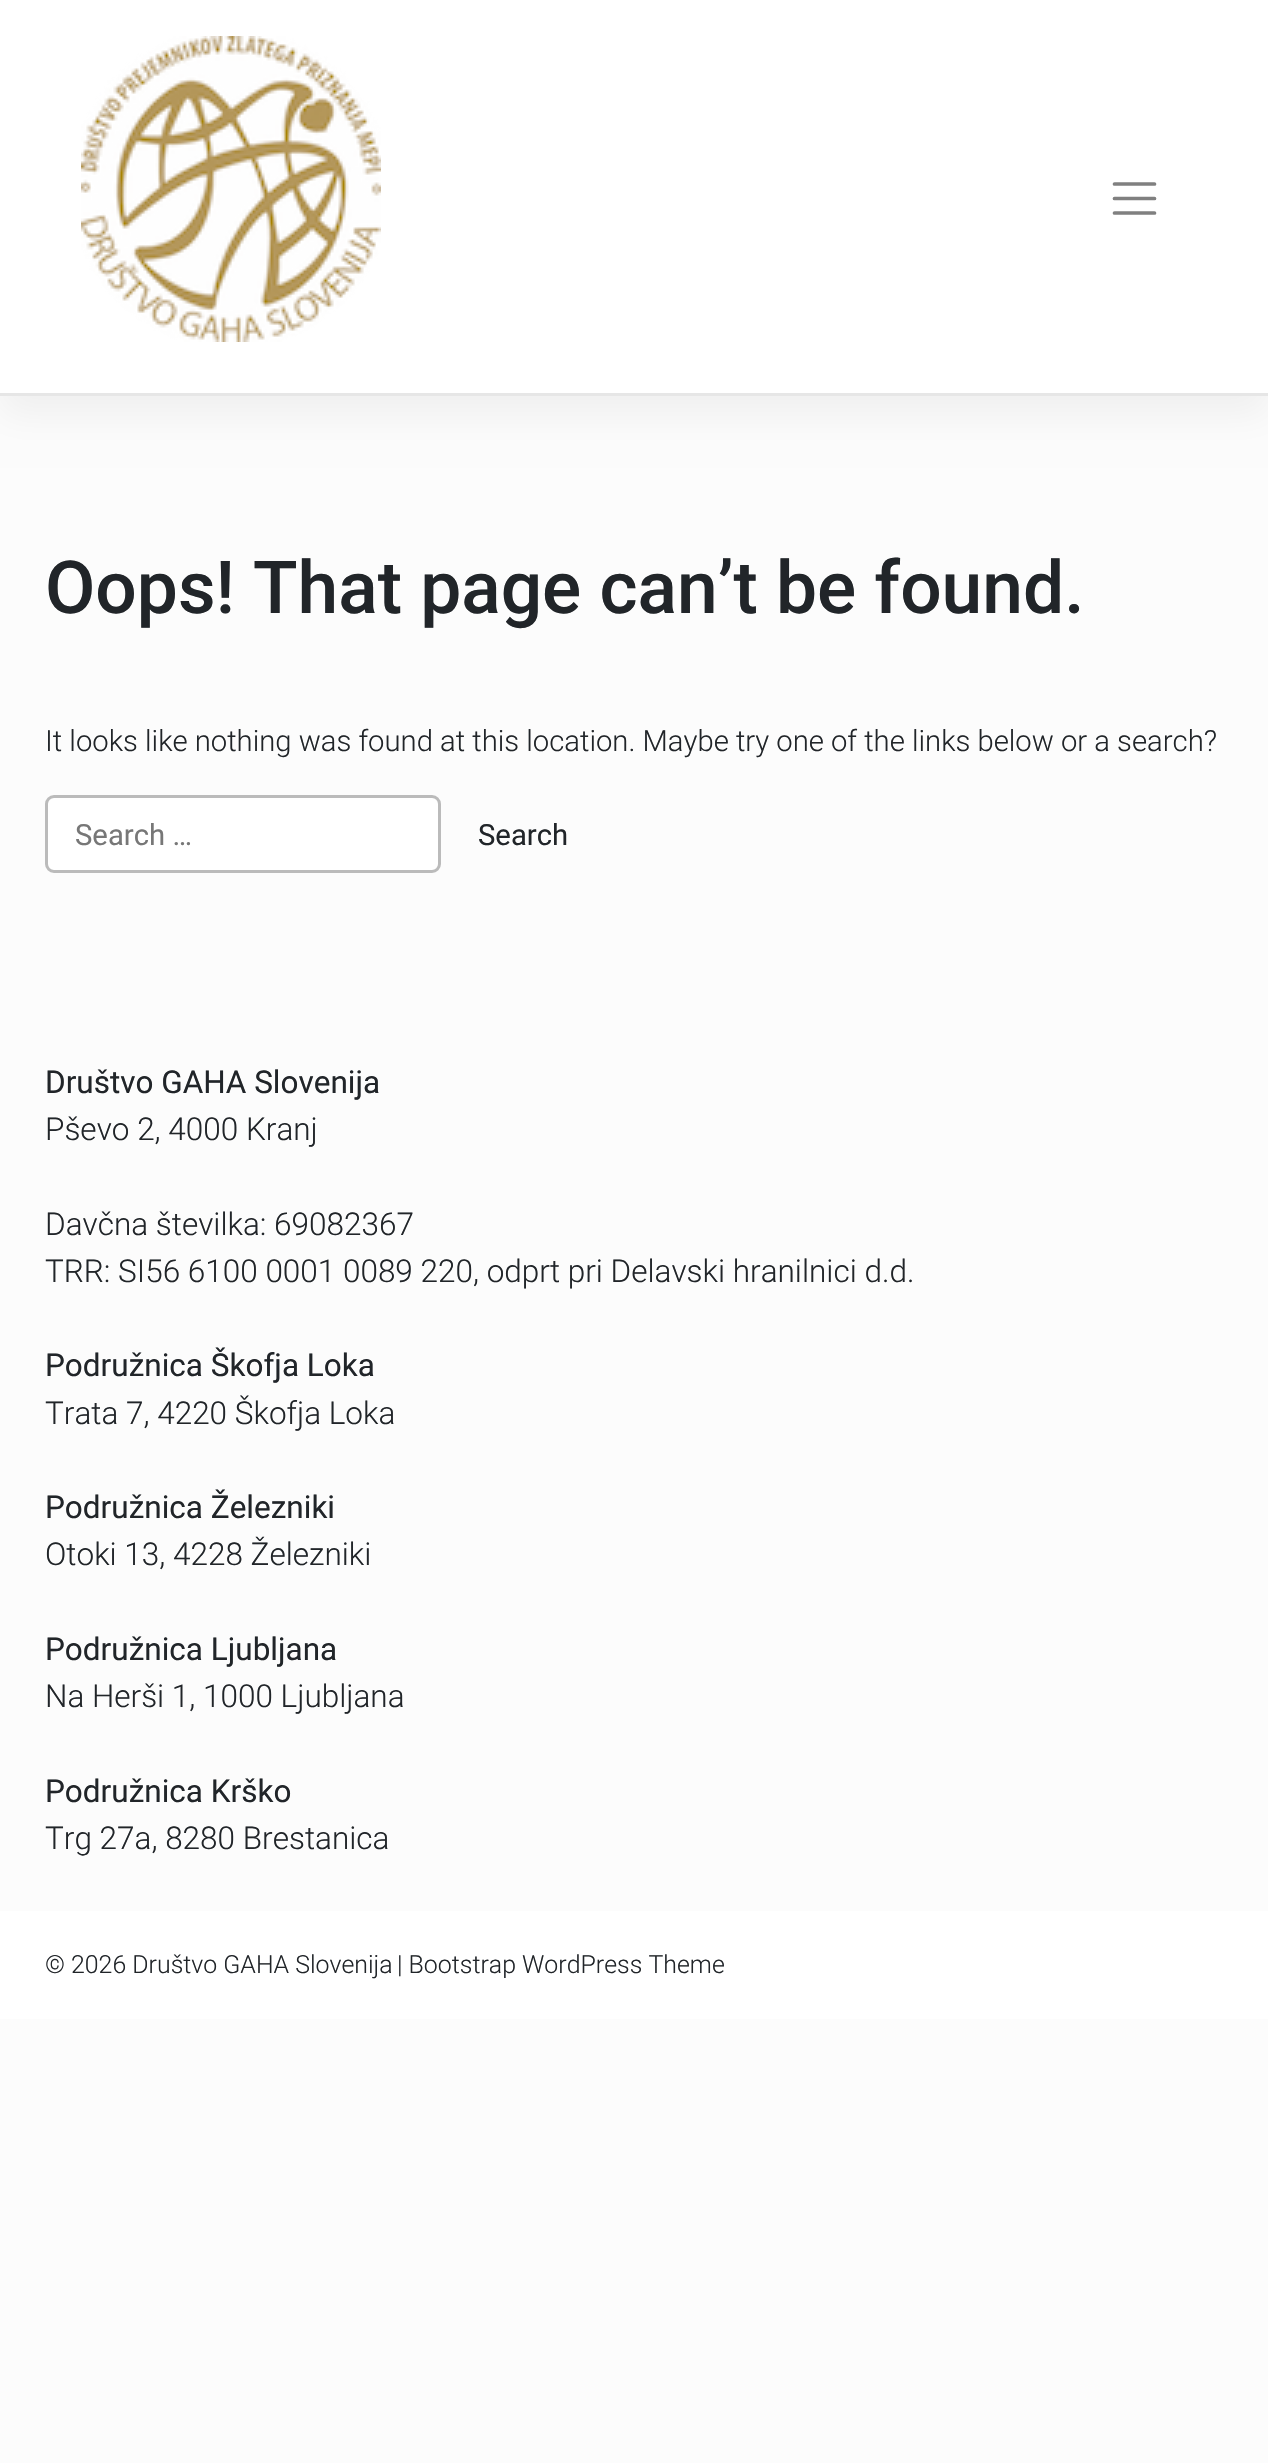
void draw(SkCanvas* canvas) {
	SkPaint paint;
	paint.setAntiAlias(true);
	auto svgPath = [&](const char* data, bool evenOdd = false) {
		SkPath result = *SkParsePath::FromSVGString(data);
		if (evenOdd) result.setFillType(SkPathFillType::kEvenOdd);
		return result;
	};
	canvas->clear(0xfffcfcfc);
	paint.setColor(0x0d000000);
	paint.setMaskFilter(SkMaskFilter::MakeBlur(kNormal_SkBlurStyle, 18));
	canvas->drawRect(SkRect::MakeXYWH(0, 18, 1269, 396), paint);
	paint.setMaskFilter(nullptr);
	paint.setColor(0xffffffff);
	canvas->drawRect(SkRect::MakeXYWH(0, 0, 1268, 393), paint);
	paint.setColor(0xffe6e6e6);
	canvas->drawRect(SkRect::MakeXYWH(0, 393, 1268, 3), paint);
	canvas->drawImageRect(SkImages::DeferredFromEncodedData(SkData::MakeFromFileName("img1.png")), SkRect::MakeXYWH(81, 36, 300, 306), SkSamplingOptions());
	paint.setStroke(true);
	paint.setStrokeWidth(3.7);
	paint.setStrokeCap(SkPaint::kRound_Cap);
	paint.setColor(0xff808080);
	canvas->drawPath(svgPath("M1114.5 184H1154.5M1114.5 198.5H1154.5M1114.5 213H1154.5"), paint);
	SkFont f1(fontMgr->matchFamilyStyle("Roboto", SkFontStyle(500, SkFontStyle::kNormal_Width, SkFontStyle::kUpright_Slant)), 73.1);
	f1.setSubpixel(true);
	paint.setStroke(false);
	paint.setColor(0xff212529);
	canvas->drawString("Oops! That page can’t be found.", 45, 613, f1, paint);
	SkFont f2(fontMgr->matchFamilyStyle("Roboto", SkFontStyle(300, SkFontStyle::kNormal_Width, SkFontStyle::kUpright_Slant)), 29.25);
	f2.setSubpixel(true);
	canvas->drawString("It looks like nothing was found at this location. Maybe try one of the links below or a search?", 45, 751, f2, paint);
	paint.setColor(0xffffffff);
	canvas->drawRoundRect(SkRect::MakeXYWH(46.5, 796.5, 393, 75), 7.5, 7.5, paint);
	paint.setStroke(true);
	paint.setStrokeWidth(3);
	paint.setStrokeCap(SkPaint::kButt_Cap);
	paint.setColor(0xffbbbbbb);
	canvas->drawRoundRect(SkRect::MakeXYWH(46.5, 796.5, 393, 75), 7.5, 7.5, paint);
	SkFont f3(fontMgr->matchFamilyStyle("Roboto", SkFontStyle::Normal()), 29.25);
	f3.setSubpixel(true);
	paint.setStroke(false);
	paint.setColor(0xff777777);
	canvas->drawString("Search …", 75, 845, f3, paint);
	paint.setColor(0xff212529);
	canvas->drawString("Search", 478, 845, f3, paint);
	SkFont f4(fontMgr->matchFamilyStyle("Roboto", SkFontStyle::Normal()), 31.5);
	f4.setSubpixel(true);
	canvas->drawString("Društvo GAHA Slovenija", 45, 1093, f4, paint);
	SkFont f5(fontMgr->matchFamilyStyle("Roboto", SkFontStyle(300, SkFontStyle::kNormal_Width, SkFontStyle::kUpright_Slant)), 31.5);
	f5.setSubpixel(true);
	canvas->drawString("Pševo 2, 4000 Kranj", 45, 1140, f5, paint);
	canvas->drawString("Davčna številka: 69082367", 45, 1235, f5, paint);
	canvas->drawString("TRR: SI56 6100 0001 0089 220, odprt pri Delavski hranilnici d.d.", 45, 1282, f5, paint);
	canvas->drawString("Podružnica Škofja Loka", 45, 1376, f4, paint);
	canvas->drawString("Trata 7, 4220 Škofja Loka", 45, 1424, f5, paint);
	canvas->drawString("Podružnica Železniki", 45, 1518, f4, paint);
	canvas->drawString("Otoki 13, 4228 Železniki", 45, 1565, f5, paint);
	canvas->drawString("Podružnica Ljubljana", 45, 1660, f4, paint);
	canvas->drawString("Na Herši 1, 1000 Ljubljana", 45, 1707, f5, paint);
	canvas->drawString("Podružnica Krško", 45, 1802, f4, paint);
	canvas->drawString("Trg 27a, 8280 Brestanica", 45, 1849, f5, paint);
	paint.setColor(0xffffffff);
	canvas->drawRect(SkRect::MakeXYWH(0, 1911, 1268, 108), paint);
	SkFont f6(fontMgr->matchFamilyStyle("Roboto", SkFontStyle(300, SkFontStyle::kNormal_Width, SkFontStyle::kUpright_Slant)), 24.9);
	f6.setSubpixel(true);
	paint.setColor(0xff212529);
	canvas->drawString("© 2026 Društvo GAHA Slovenija", 45, 1973, f6, paint);
	canvas->drawString("| Bootstrap WordPress Theme", 397, 1973, f6, paint);
}
